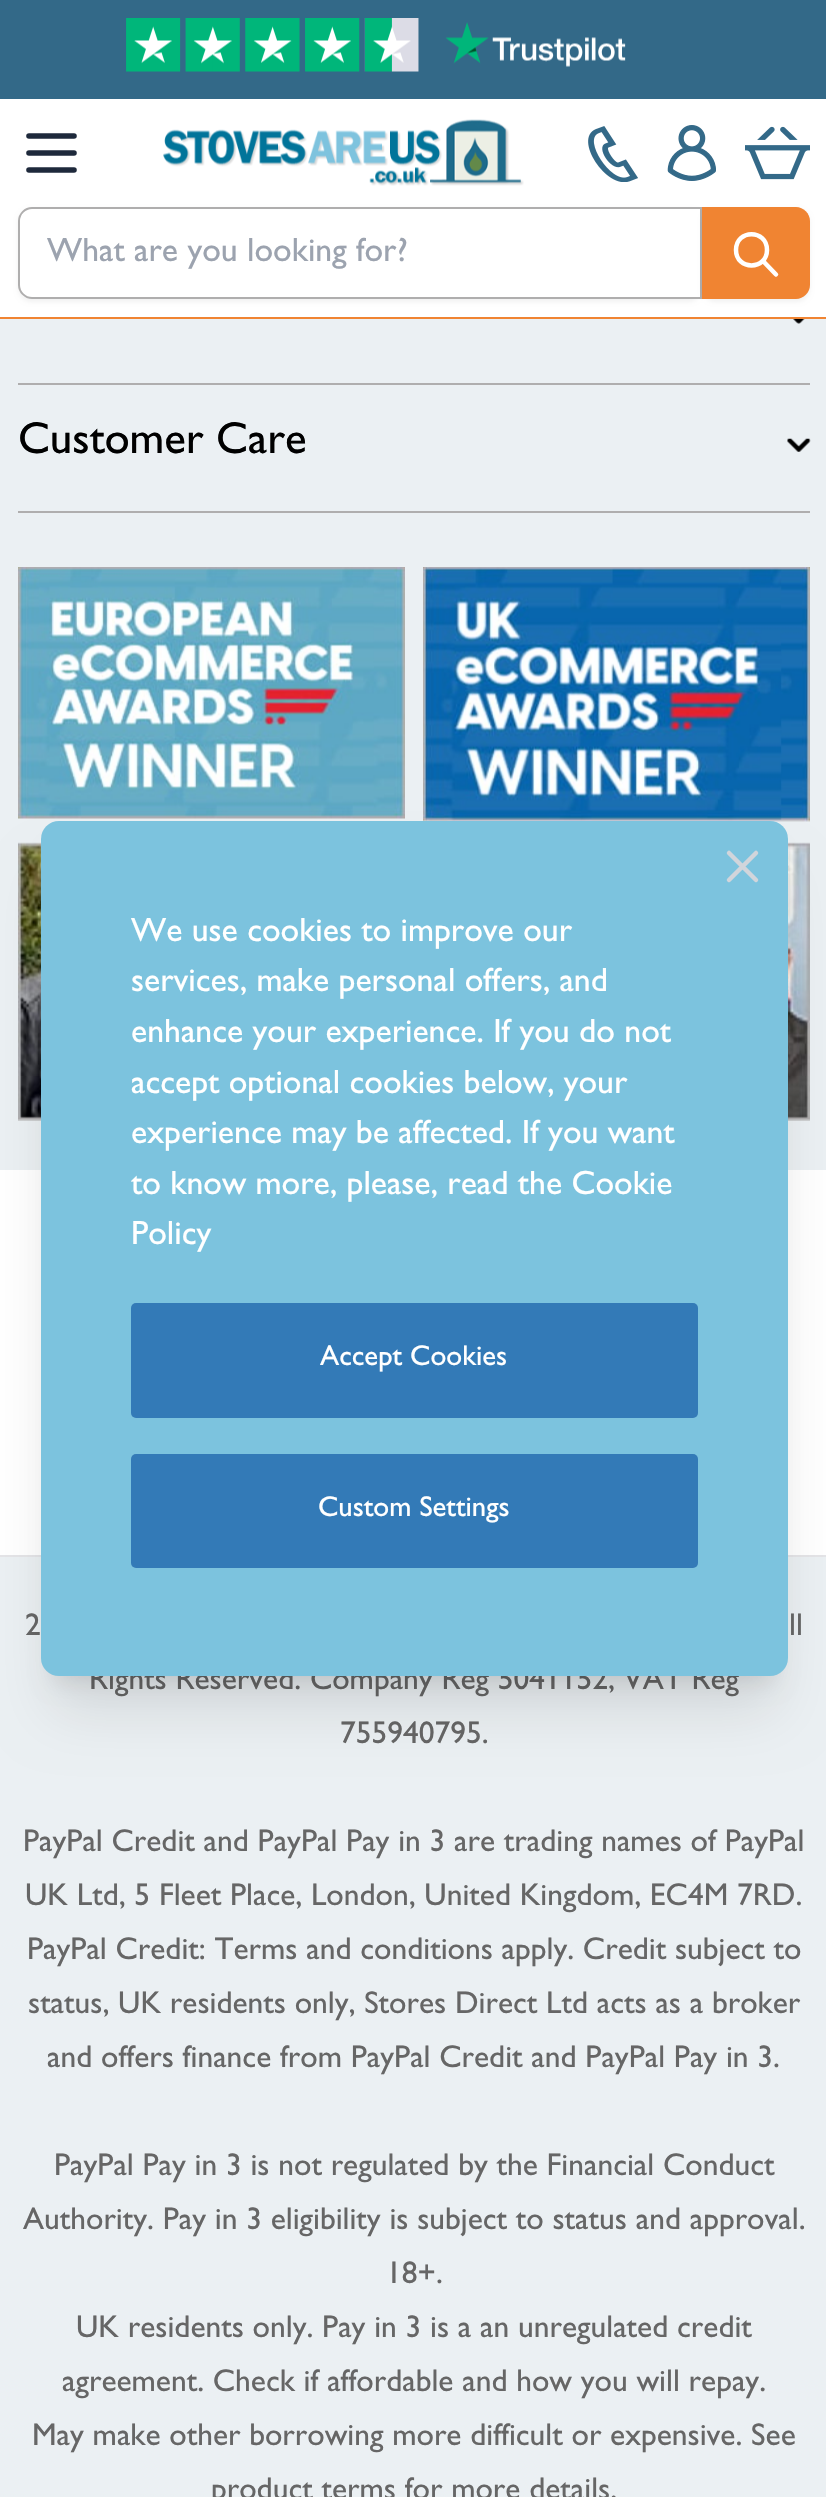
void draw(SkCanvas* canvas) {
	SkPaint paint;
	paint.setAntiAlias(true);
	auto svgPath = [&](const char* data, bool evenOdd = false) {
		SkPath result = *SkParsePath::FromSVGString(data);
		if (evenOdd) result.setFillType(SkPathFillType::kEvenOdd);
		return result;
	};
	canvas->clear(0xffebf0f3);
	paint.setColor(0xfff08432);
	canvas->drawRect(SkRect::MakeXYWH(0, 317, 826, 2), paint);
	paint.setColor(0xffffffff);
	canvas->drawRect(SkRect::MakeXYWH(0, 99, 826, 218), paint);
	paint.setColor(0xff336988);
	canvas->drawRect(SkRect::MakeXYWH(0, 0, 826, 99), paint);
	canvas->drawImageRect(SkImages::DeferredFromEncodedData(SkData::MakeFromFileName("img1.png")), SkRect::MakeXYWH(126, 18, 500, 54), SkSamplingOptions());
	paint.setStroke(true);
	paint.setStrokeWidth(5.6);
	paint.setStrokeCap(SkPaint::kRound_Cap);
	paint.setStrokeJoin(SkPaint::kRound_Join);
	paint.setColor(0xff1e293b);
	canvas->drawPath(svgPath("M29 136H74M29 153H74M29 170H74"), paint);
	canvas->drawImageRect(SkImages::DeferredFromEncodedData(SkData::MakeFromFileName("img2.png")), SkRect::MakeXYWH(163, 119, 361, 67), SkSamplingOptions());
	canvas->drawImageRect(SkImages::DeferredFromEncodedData(SkData::MakeFromFileName("img3.png")), SkRect::MakeXYWH(588, 126, 50, 56), SkSamplingOptions());
	canvas->drawImageRect(SkImages::DeferredFromEncodedData(SkData::MakeFromFileName("img4.png")), SkRect::MakeXYWH(667, 125, 49, 56), SkSamplingOptions());
	canvas->drawImageRect(SkImages::DeferredFromEncodedData(SkData::MakeFromFileName("img5.png")), SkRect::MakeXYWH(745, 126, 65, 54), SkSamplingOptions());
	canvas->save();
	canvas->clipPath(svgPath("M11 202H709V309H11ZM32 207H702V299H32C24.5 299 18 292.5 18 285V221C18 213.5 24.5 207 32 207Z", true), true);
	paint.setStroke(false);
	paint.setColor(0x0d000000);
	paint.setMaskFilter(SkMaskFilter::MakeBlur(kNormal_SkBlurStyle, 2));
	canvas->drawRoundRect(SkRect::MakeXYWH(18, 209, 684, 93), 14, 14, paint);
	paint.setMaskFilter(nullptr);
	canvas->restore();
	paint.setStroke(true);
	paint.setStrokeWidth(2);
	paint.setStrokeCap(SkPaint::kButt_Cap);
	paint.setStrokeJoin(SkPaint::kMiter_Join);
	paint.setColor(0xffafaeae);
	canvas->drawPath(svgPath("M32 208H701V298H32C25 298 19 292 19 285V221C19 214 25 208 32 208Z"), paint);
	SkFont f1(fontMgr->matchFamilyStyle("Gill Sans", SkFontStyle::Normal()), 33.75);
	f1.setSubpixel(true);
	paint.setStroke(false);
	paint.setColor(0xff9ca3af);
	canvas->drawString("What are you looking for?", 47, 261, f1, paint);
	paint.setColor(0x0d000000);
	paint.setMaskFilter(SkMaskFilter::MakeBlur(kNormal_SkBlurStyle, 2));
	canvas->drawRoundRect(SkRect::MakeXYWH(702, 209, 108, 93), 14, 14, paint);
	paint.setMaskFilter(nullptr);
	paint.setColor(0xfff08432);
	canvas->drawPath(svgPath("M702 207H796C803.5 207 810 213.5 810 221V285C810 292.5 803.5 299 796 299H702Z"), paint);
	paint.setStroke(true);
	paint.setStrokeWidth(4.5);
	paint.setStrokeCap(SkPaint::kRound_Cap);
	paint.setStrokeJoin(SkPaint::kRound_Join);
	paint.setColor(0xffffffff);
	canvas->drawPath(svgPath("M776 274.5L763 261M767 250C767 270.5 736 270.5 736 250C736 229 767 229 767 250Z"), paint);
	canvas->drawImageRect(SkImages::DeferredFromEncodedData(SkData::MakeFromFileName("img6.png")), SkRect::MakeXYWH(793, 319, 12, 5), SkSamplingOptions());
	paint.setStroke(false);
	paint.setColor(0xffafaeae);
	canvas->drawRect(SkRect::MakeXYWH(18, 383, 792, 2), paint);
	SkFont f2(fontMgr->matchFamilyStyle("Gill Sans", SkFontStyle::Normal()), 45);
	f2.setSubpixel(true);
	paint.setColor(0xff000000);
	canvas->drawString("Customer Care", 18, 453, f2, paint);
	canvas->drawImageRect(SkImages::DeferredFromEncodedData(SkData::MakeFromFileName("img7.png")), SkRect::MakeXYWH(787, 438, 24, 14), SkSamplingOptions());
	paint.setColor(0xffafaeae);
	canvas->drawRect(SkRect::MakeXYWH(18, 511, 792, 2), paint);
	canvas->drawImageRect(SkImages::DeferredFromEncodedData(SkData::MakeFromFileName("img8.png")), SkRect::MakeXYWH(18, 567, 387, 252), SkSamplingOptions());
	canvas->drawImageRect(SkImages::DeferredFromEncodedData(SkData::MakeFromFileName("img9.png")), SkRect::MakeXYWH(423, 567, 387, 255), SkSamplingOptions());
	canvas->drawImageRect(SkImages::DeferredFromEncodedData(SkData::MakeFromFileName("img10.png")), SkRect::MakeXYWH(18, 842, 792, 279), SkSamplingOptions());
	paint.setColor(0xffffffff);
	canvas->drawRect(SkRect::MakeXYWH(0, 1170, 826, 385), paint);
	paint.setColor(0xffe4e4e7);
	canvas->drawRect(SkRect::MakeXYWH(0, 1555, 826, 2), paint);
	SkFont f3(fontMgr->matchFamilyStyle("Gill Sans", SkFontStyle::Normal()), 31.5);
	f3.setSubpixel(true);
	paint.setColor(0xff666666);
	canvas->drawString("2", 25, 1635, f3, paint);
	canvas->drawString("ll", 789, 1635, f3, paint);
	canvas->drawString("Rights Reserved. Company Reg 5041152, VAT Reg", 89, 1689, f3, paint);
	canvas->drawString("755940795.", 340, 1743, f3, paint);
	canvas->drawString("PayPal Credit and PayPal Pay in 3 are trading names of PayPal", 23, 1851, f3, paint);
	canvas->drawString("UK Ltd, 5 Fleet Place, London, United Kingdom, EC4M 7RD.", 25, 1905, f3, paint);
	canvas->drawString("PayPal Credit: Terms and conditions apply. Credit subject to", 27, 1959, f3, paint);
	canvas->drawString("status, UK residents only, Stores Direct Ltd acts as a broker", 28, 2013, f3, paint);
	canvas->drawString("and offers finance from PayPal Credit and PayPal Pay in 3.", 47, 2067, f3, paint);
	canvas->drawString("PayPal Pay in 3 is not regulated by the Financial Conduct", 54, 2175, f3, paint);
	canvas->drawString("Authority. Pay in 3 eligibility is subject to status and approval.", 23, 2229, f3, paint);
	canvas->drawString("18+.", 386, 2283, f3, paint);
	canvas->drawString("UK residents only. Pay in 3 is a an unregulated credit", 76, 2337, f3, paint);
	canvas->drawString("agreement. Check if affordable and how you will repay.", 62, 2391, f3, paint);
	canvas->drawString("May make other borrowing more difficult or expensive. See", 32, 2445, f3, paint);
	canvas->drawString("product terms for more details.", 211, 2499, f3, paint);
	paint.setColor(0x1a000000);
	paint.setMaskFilter(SkMaskFilter::MakeBlur(kNormal_SkBlurStyle, 11));
	canvas->drawRoundRect(SkRect::MakeXYWH(54, 853, 720, 828), 5, 5, paint);
	paint.setMaskFilter(nullptr);
	paint.setMaskFilter(SkMaskFilter::MakeBlur(kNormal_SkBlurStyle, 28));
	canvas->drawRoundRect(SkRect::MakeXYWH(52, 878, 724, 832), 7, 7, paint);
	paint.setMaskFilter(nullptr);
	paint.setColor(0xff7cc3de);
	canvas->drawRoundRect(SkRect::MakeXYWH(41, 821, 747, 855), 18, 18, paint);
	paint.setStroke(true);
	paint.setColor(0xffd1d5db);
	canvas->drawPath(svgPath("M729 880L756 853M729 853L756 880"), paint);
	paint.setStroke(false);
	paint.setColor(0xffffffff);
	canvas->drawString("We use cookies to improve our", 131, 941, f1, paint);
	canvas->drawString("services, make personal offers, and", 131, 991, f1, paint);
	canvas->drawString("enhance your experience. If you do not", 131, 1042, f1, paint);
	canvas->drawString("accept optional cookies below, your", 131, 1093, f1, paint);
	canvas->drawString("experience may be affected. If you want", 131, 1143, f1, paint);
	canvas->drawString("to know more, please, read the Cookie", 131, 1194, f1, paint);
	canvas->drawString("Policy", 131, 1244, f1, paint);
	paint.setColor(0xff337ab7);
	canvas->drawRoundRect(SkRect::MakeXYWH(131, 1303, 567, 115), 5, 5, paint);
	SkFont f4(fontMgr->matchFamilyStyle("Gill Sans", SkFontStyle::Normal()), 28.75);
	f4.setSubpixel(true);
	paint.setColor(0xffffffff);
	canvas->drawString("Accept Cookies", 320, 1365, f4, paint);
	paint.setColor(0xff337ab7);
	canvas->drawRoundRect(SkRect::MakeXYWH(131, 1454, 567, 114), 5, 5, paint);
	paint.setColor(0xffffffff);
	canvas->drawString("Custom Settings", 318, 1516, f4, paint);
}
